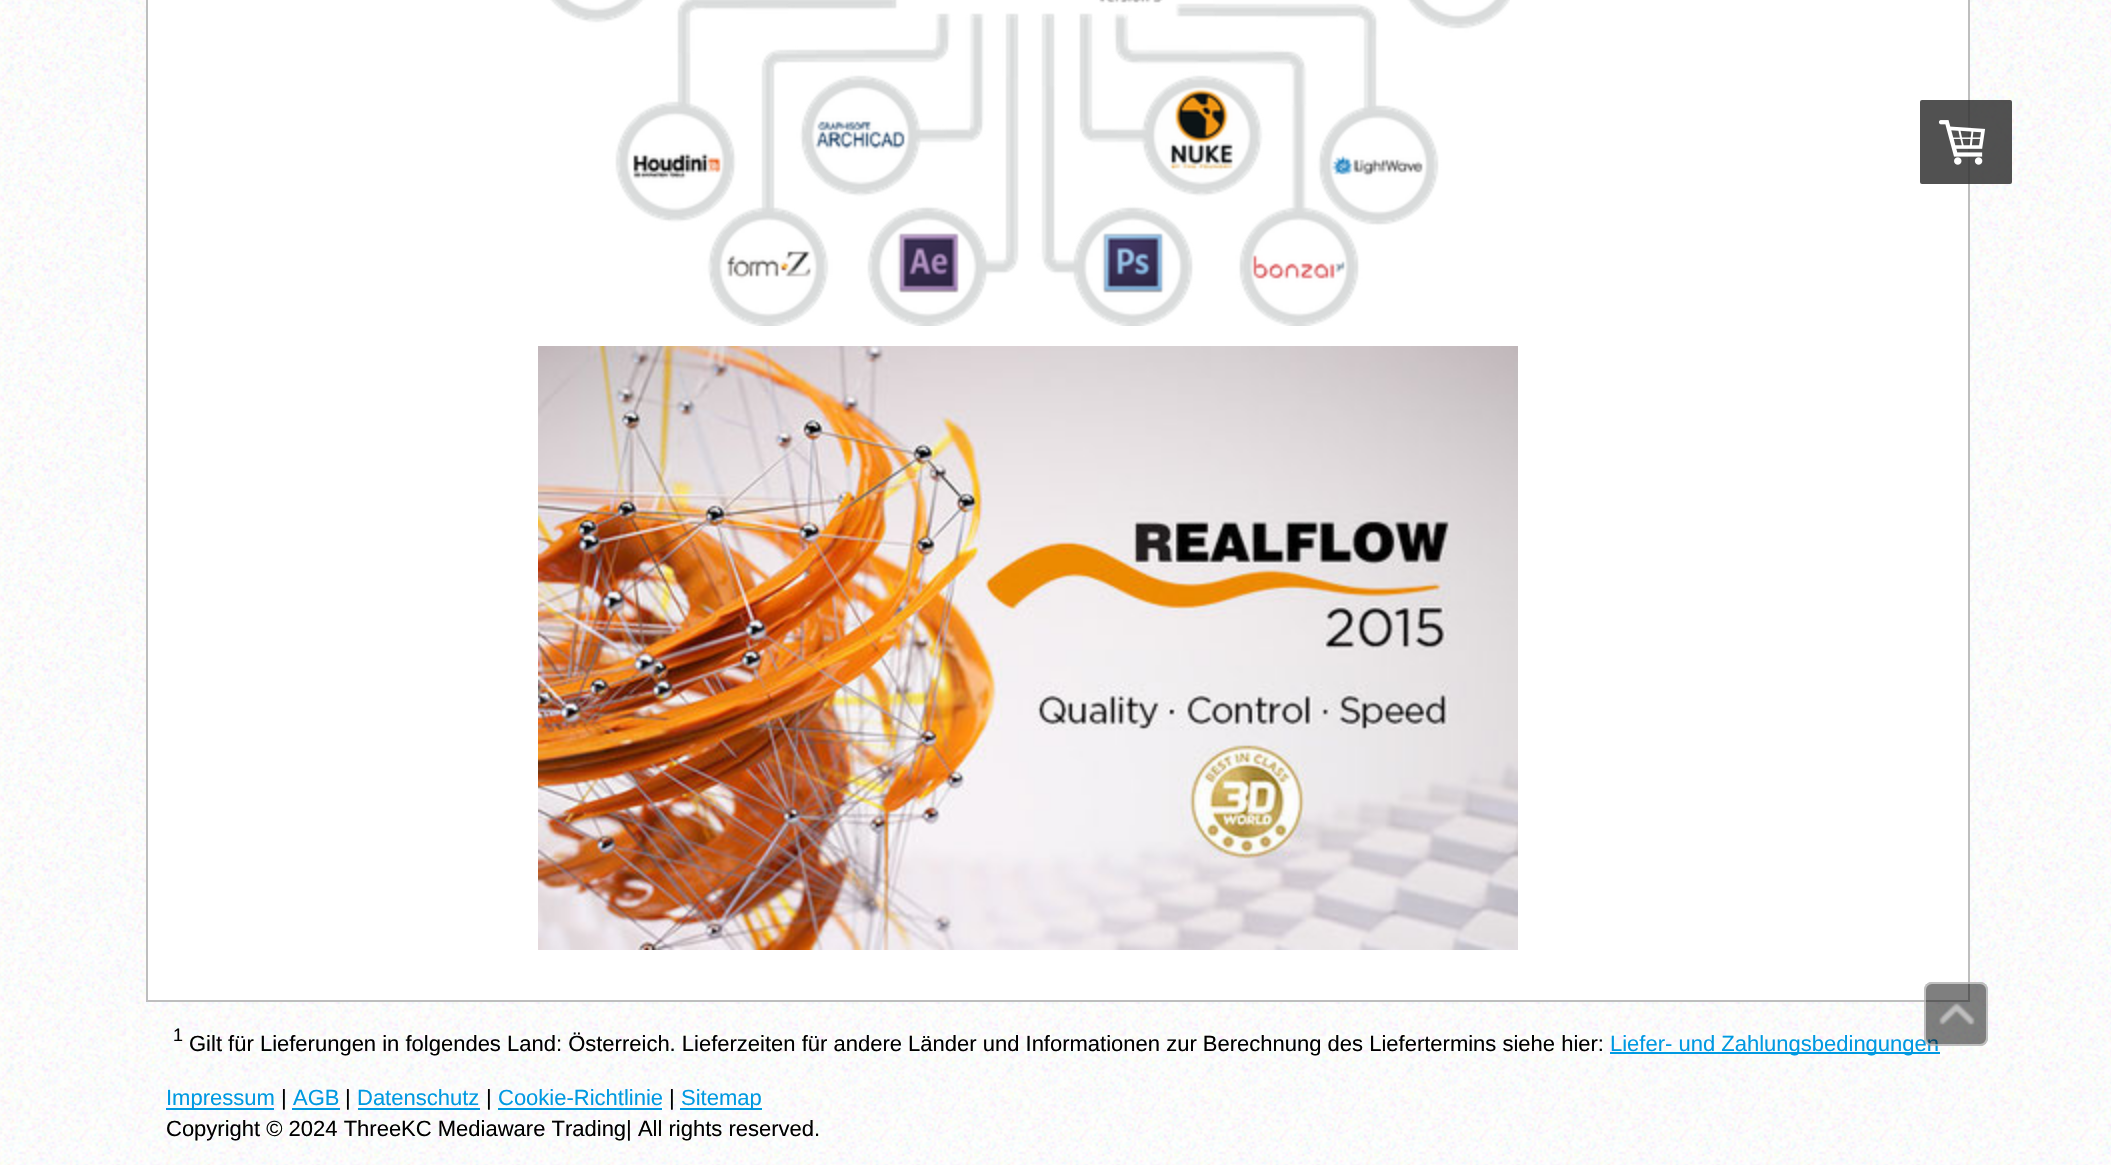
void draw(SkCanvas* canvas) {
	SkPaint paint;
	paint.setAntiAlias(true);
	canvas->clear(0xffffffff);
	canvas->drawImageRect(SkImages::DeferredFromEncodedData(SkData::MakeFromFileName("img1.png")), SkRect::MakeXYWH(0, 0, 2111, 1165), SkSamplingOptions());
	paint.setColor(0xffffffff);
	canvas->drawRect(SkRect::MakeXYWH(147, -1, 1822, 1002), paint);
	paint.setStroke(true);
	paint.setStrokeWidth(2);
	paint.setColor(0xffbebebe);
	canvas->drawRect(SkRect::MakeXYWH(147, -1, 1822, 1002), paint);
	paint.setStroke(false);
	paint.setColor(0xff0099e1);
	canvas->drawRect(SkRect::MakeXYWH(1610, 1052, 330, 2), paint);
	SkFont f1(fontMgr->matchFamilyStyle("Liberation Sans", SkFontStyle::Normal()), 22);
	f1.setSubpixel(true);
	canvas->drawString("Liefer- und Zahlungsbedingungen", 1610, 1051, f1, paint);
	paint.setColor(0x80000000);
	canvas->drawRoundRect(SkRect::MakeXYWH(1924, 982, 64, 64), 8, 8, paint);
	paint.setStroke(true);
	paint.setColor(0x80ffffff);
	canvas->drawRoundRect(SkRect::MakeXYWH(1925, 983, 62, 62), 7, 7, paint);
	canvas->drawImageRect(SkImages::DeferredFromEncodedData(SkData::MakeFromFileName("img2.png")), SkRect::MakeXYWH(1939, 1003, 36, 22), SkSamplingOptions());
	canvas->drawImageRect(SkImages::DeferredFromEncodedData(SkData::MakeFromFileName("img3.png")), SkRect::MakeXYWH(550, 0, 960, 326), SkSamplingOptions());
	canvas->drawImageRect(SkImages::DeferredFromEncodedData(SkData::MakeFromFileName("img4.png")), SkRect::MakeXYWH(538, 346, 980, 604), SkSamplingOptions());
	paint.setStroke(false);
	paint.setColor(0xd9333333);
	canvas->drawRoundRect(SkRect::MakeXYWH(1920, 100, 92, 84), 2, 2, paint);
	canvas->drawImageRect(SkImages::DeferredFromEncodedData(SkData::MakeFromFileName("img5.png")), SkRect::MakeXYWH(1938, 120, 48, 45), SkSamplingOptions());
	SkFont f2(fontMgr->matchFamilyStyle("Liberation Sans", SkFontStyle::Normal()), 18);
	f2.setSubpixel(true);
	paint.setColor(0xff000000);
	canvas->drawString("1", 173, 1041, f2, paint);
	canvas->drawString("Gilt für Lieferungen in folgendes Land: Österreich. Lieferzeiten für andere Länder und Informationen zur Berechnung des Liefertermins siehe hier:", 189, 1051, f1, paint);
	paint.setColor(0xff0099e1);
	canvas->drawRect(SkRect::MakeXYWH(166, 1108, 108, 2), paint);
	canvas->drawString("Impressum", 166, 1105, f1, paint);
	paint.setColor(0xff000000);
	canvas->drawString("|", 281, 1105, f1, paint);
	paint.setColor(0xff0099e1);
	canvas->drawString("AGB", 293, 1105, f1, paint);
	canvas->drawRect(SkRect::MakeXYWH(292, 1108, 48, 2), paint);
	paint.setColor(0xff000000);
	canvas->drawString("|", 345, 1105, f1, paint);
	paint.setColor(0xff0099e1);
	canvas->drawString("Datenschutz", 357, 1105, f1, paint);
	canvas->drawRect(SkRect::MakeXYWH(358, 1108, 122, 2), paint);
	paint.setColor(0xff000000);
	canvas->drawString("|", 486, 1105, f1, paint);
	paint.setColor(0xff0099e1);
	canvas->drawString("Cookie-Richtlinie", 498, 1105, f1, paint);
	canvas->drawRect(SkRect::MakeXYWH(498, 1108, 164, 2), paint);
	paint.setColor(0xff000000);
	canvas->drawString("|", 669, 1105, f1, paint);
	paint.setColor(0xff0099e1);
	canvas->drawRect(SkRect::MakeXYWH(680, 1108, 82, 2), paint);
	canvas->drawString("Sitemap", 681, 1105, f1, paint);
	paint.setColor(0xff000000);
	canvas->drawString("Copyright © 2024 ThreeKC Mediaware Trading| All rights reserved.", 166, 1136, f1, paint);
}
